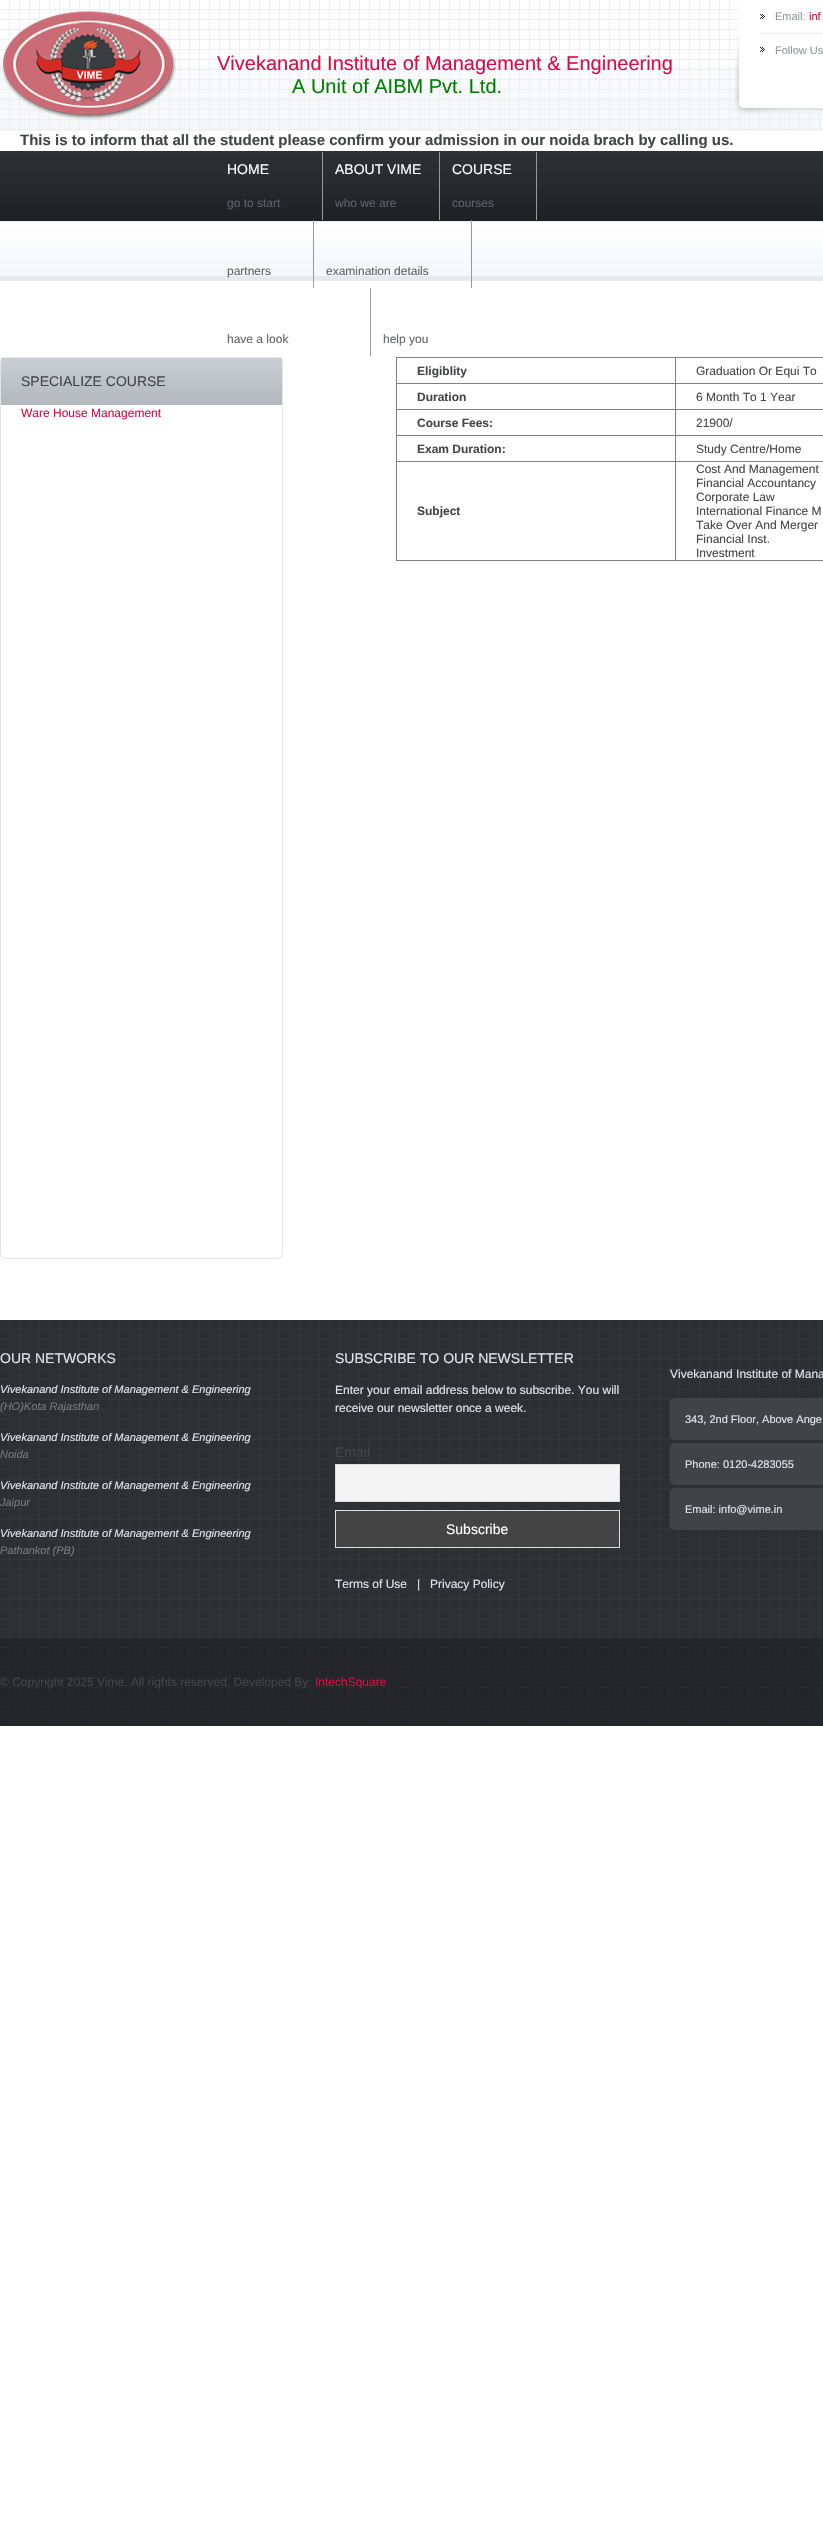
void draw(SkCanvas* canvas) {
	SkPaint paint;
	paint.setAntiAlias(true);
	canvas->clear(0xffffffff);
	canvas->drawImageRect(SkImages::DeferredFromEncodedData(SkData::MakeFromFileName("img1.png")), SkRect::MakeXYWH(0, 66, 823, 65), SkSamplingOptions());
	canvas->drawImageRect(SkImages::DeferredFromEncodedData(SkData::MakeFromFileName("img2.png")), SkRect::MakeXYWH(0, 0, 823, 131), SkSamplingOptions());
	canvas->drawImageRect(SkImages::DeferredFromEncodedData(SkData::MakeFromFileName("img3.png")), SkRect::MakeXYWH(0, 11, 176, 109), SkSamplingOptions());
	canvas->drawImageRect(SkImages::DeferredFromEncodedData(SkData::MakeFromFileName("img4.png")), SkRect::MakeXYWH(734, 0, 89, 114), SkSamplingOptions());
	paint.setColor(0xffebebed);
	canvas->drawRect(SkRect::MakeXYWH(760, 33, 63, 1), paint);
	canvas->drawImageRect(SkImages::DeferredFromEncodedData(SkData::MakeFromFileName("img5.png")), SkRect::MakeXYWH(760, 14, 5, 5), SkSamplingOptions());
	SkFont f1(fontMgr->matchFamilyStyle("Liberation Sans", SkFontStyle::Normal()), 11);
	f1.setSubpixel(true);
	paint.setColor(0xff92979d);
	canvas->drawString("Email:", 775, 20, f1, paint);
	paint.setColor(0xffdd0c46);
	canvas->drawString("inf", 809, 20, f1, paint);
	canvas->drawImageRect(SkImages::DeferredFromEncodedData(SkData::MakeFromFileName("img5.png")), SkRect::MakeXYWH(760, 47, 5, 5), SkSamplingOptions());
	paint.setColor(0xff92979d);
	canvas->drawString("Follow Us", 775, 54, f1, paint);
	SkFont f2(fontMgr->matchFamilyStyle("Liberation Sans", SkFontStyle::Normal()), 20);
	f2.setSubpixel(true);
	paint.setColor(0xffdd0c46);
	canvas->drawString("Vivekanand Institute of Management & Engineering", 217, 70, f2, paint);
	paint.setColor(0xff008000);
	canvas->drawString("A Unit of AIBM Pvt. Ltd.", 292, 93, f2, paint);
	canvas->save();
	canvas->clipRect(SkRect::MakeXYWH(0, 131, 823, 17));
	SkFont f3(fontMgr->matchFamilyStyle("Liberation Sans", SkFontStyle::Bold()), 15);
	f3.setSubpixel(true);
	paint.setColor(0xff444549);
	canvas->drawString("This is to inform that all the student please confirm your admission in our noida brach by calling us.", 20, 145, f3, paint);
	canvas->restore();
	canvas->drawImageRect(SkImages::DeferredFromEncodedData(SkData::MakeFromFileName("img6.png")), SkRect::MakeXYWH(0, 151, 823, 70), SkSamplingOptions());
	paint.setColor(0xff999999);
	canvas->drawRect(SkRect::MakeXYWH(322, 152, 1, 68), paint);
	SkFont f4(fontMgr->matchFamilyStyle("Liberation Sans", SkFontStyle::Normal()), 14);
	f4.setSubpixel(true);
	paint.setColor(0xffffffff);
	canvas->drawString("HOME", 227, 174, f4, paint);
	SkFont f5(fontMgr->matchFamilyStyle("Liberation Sans", SkFontStyle::Normal()), 12);
	f5.setSubpixel(true);
	paint.setColor(0xff606168);
	canvas->drawString("go to start", 227, 207, f5, paint);
	paint.setColor(0xff999999);
	canvas->drawRect(SkRect::MakeXYWH(439, 152, 1, 68), paint);
	paint.setColor(0xffffffff);
	canvas->drawString("ABOUT VIME", 335, 174, f4, paint);
	paint.setColor(0xff606168);
	canvas->drawString("who we are", 335, 207, f5, paint);
	paint.setColor(0xff999999);
	canvas->drawRect(SkRect::MakeXYWH(536, 152, 1, 68), paint);
	paint.setColor(0xffffffff);
	canvas->drawString("COURSE", 452, 174, f4, paint);
	paint.setColor(0xff606168);
	canvas->drawString("courses", 452, 207, f5, paint);
	canvas->drawImageRect(SkImages::DeferredFromEncodedData(SkData::MakeFromFileName("img7.png")), SkRect::MakeXYWH(0, 221, 823, 60), SkSamplingOptions());
	paint.setColor(0xff999999);
	canvas->drawRect(SkRect::MakeXYWH(313, 220, 1, 68), paint);
	paint.setColor(0xff606168);
	canvas->drawString("partners", 227, 275, f5, paint);
	paint.setColor(0xff999999);
	canvas->drawRect(SkRect::MakeXYWH(471, 220, 1, 68), paint);
	paint.setColor(0xff606168);
	canvas->drawString("examination details", 326, 275, f5, paint);
	paint.setColor(0xff999999);
	canvas->drawRect(SkRect::MakeXYWH(370, 288, 1, 68), paint);
	paint.setColor(0xff606168);
	canvas->drawString("have a look", 227, 343, f5, paint);
	canvas->drawString("help you", 383, 343, f5, paint);
	paint.setStroke(true);
	paint.setStrokeWidth(1);
	paint.setColor(0xffe1e5e9);
	canvas->drawRoundRect(SkRect::MakeXYWH(0.5, 357.5, 282, 901), 4.5, 4.5, paint);
	canvas->drawImageRect(SkImages::DeferredFromEncodedData(SkData::MakeFromFileName("img8.png")), SkRect::MakeXYWH(1, 358, 281, 47), SkSamplingOptions());
	paint.setStroke(false);
	paint.setColor(0xff444549);
	canvas->drawString("SPECIALIZE COURSE", 21, 386, f4, paint);
	paint.setColor(0xffdd0c46);
	canvas->drawString("Ware House Management", 21, 417, f5, paint);
	paint.setColor(0xff808080);
	canvas->drawRect(SkRect::MakeXYWH(396, 357, 427, 1), paint);
	canvas->drawRect(SkRect::MakeXYWH(396, 560, 427, 1), paint);
	canvas->drawRect(SkRect::MakeXYWH(396, 357, 1, 204), paint);
	SkFont f6(fontMgr->matchFamilyStyle("Liberation Sans", SkFontStyle::Bold()), 12);
	f6.setSubpixel(true);
	paint.setColor(0xff444549);
	canvas->drawString("Eligiblity", 417, 375, f6, paint);
	paint.setColor(0xff808080);
	canvas->drawRect(SkRect::MakeXYWH(675, 383, 148, 1), paint);
	canvas->drawRect(SkRect::MakeXYWH(675, 409, 148, 1), paint);
	canvas->drawRect(SkRect::MakeXYWH(675, 435, 148, 1), paint);
	canvas->drawRect(SkRect::MakeXYWH(675, 461, 148, 1), paint);
	canvas->drawRect(SkRect::MakeXYWH(675, 461, 1, 100), paint);
	canvas->drawRect(SkRect::MakeXYWH(396, 461, 280, 1), paint);
	canvas->drawRect(SkRect::MakeXYWH(675, 435, 1, 27), paint);
	canvas->drawRect(SkRect::MakeXYWH(396, 435, 280, 1), paint);
	canvas->drawRect(SkRect::MakeXYWH(675, 409, 1, 27), paint);
	canvas->drawRect(SkRect::MakeXYWH(396, 409, 280, 1), paint);
	canvas->drawRect(SkRect::MakeXYWH(675, 383, 1, 27), paint);
	canvas->drawRect(SkRect::MakeXYWH(396, 383, 280, 1), paint);
	canvas->drawRect(SkRect::MakeXYWH(675, 357, 1, 27), paint);
	paint.setColor(0xff444549);
	canvas->drawString("Graduation Or Equi To", 696, 375, f5, paint);
	canvas->drawString("Duration", 417, 401, f6, paint);
	canvas->drawString("6 Month To 1 Year", 696, 401, f5, paint);
	canvas->drawString("Course Fees:", 417, 427, f6, paint);
	canvas->drawString("21900/", 696, 427, f5, paint);
	canvas->drawString("Exam Duration:", 417, 453, f6, paint);
	canvas->drawString("Study Centre/Home", 696, 453, f5, paint);
	canvas->drawString("Subject", 417, 515, f6, paint);
	canvas->drawString("Cost And Management", 696, 473, f5, paint);
	canvas->drawString("Financial Accountancy", 696, 487, f5, paint);
	canvas->drawString("Corporate Law", 696, 501, f5, paint);
	canvas->drawString("International Finance M", 696, 515, f5, paint);
	canvas->drawString("Take Over And Merger", 696, 529, f5, paint);
	canvas->drawString("Financial Inst.", 696, 543, f5, paint);
	canvas->drawString("Investment", 696, 557, f5, paint);
	canvas->drawImageRect(SkImages::DeferredFromEncodedData(SkData::MakeFromFileName("img9.png")), SkRect::MakeXYWH(0, 1320, 823, 318), SkSamplingOptions());
	paint.setColor(0xffe1e5e9);
	canvas->drawString("OUR NETWORKS", 0, 1363, f4, paint);
	SkFont f7(fontMgr->matchFamilyStyle("Liberation Sans", SkFontStyle::Italic()), 11);
	f7.setSubpixel(true);
	canvas->drawString("Vivekanand Institute of Management & Engineering", 0, 1393, f7, paint);
	paint.setColor(0xff77797c);
	canvas->drawString("(HO)Kota Rajasthan", 0, 1410, f7, paint);
	paint.setColor(0xffe1e5e9);
	canvas->drawString("Vivekanand Institute of Management & Engineering", 0, 1441, f7, paint);
	paint.setColor(0xff77797c);
	canvas->drawString("Noida", 0, 1458, f7, paint);
	paint.setColor(0xffe1e5e9);
	canvas->drawString("Vivekanand Institute of Management & Engineering", 0, 1489, f7, paint);
	paint.setColor(0xff77797c);
	canvas->drawString("Jaipur", 0, 1506, f7, paint);
	paint.setColor(0xffe1e5e9);
	canvas->drawString("Vivekanand Institute of Management & Engineering", 0, 1537, f7, paint);
	paint.setColor(0xff77797c);
	canvas->drawString("Pathankot (PB)", 0, 1554, f7, paint);
	paint.setColor(0xffe1e5e9);
	canvas->drawString("SUBSCRIBE TO OUR NEWSLETTER", 335, 1363, f4, paint);
	canvas->drawString("Enter your email address below to subscribe. You will", 335, 1394, f5, paint);
	canvas->drawString("receive our newsletter once a week.", 335, 1412, f5, paint);
	paint.setColor(0xff444549);
	canvas->drawString("Email", 335, 1457, f4, paint);
	paint.setColor(0xfff4f4f4);
	canvas->drawRect(SkRect::MakeXYWH(335.5, 1464.5, 284, 37), paint);
	paint.setStroke(true);
	paint.setColor(0xffdddddd);
	canvas->drawRect(SkRect::MakeXYWH(335.5, 1464.5, 284, 37), paint);
	paint.setStroke(false);
	paint.setColor(0xff444444);
	canvas->drawRect(SkRect::MakeXYWH(335.5, 1510.5, 284, 37), paint);
	paint.setStroke(true);
	paint.setColor(0xffdddddd);
	canvas->drawRect(SkRect::MakeXYWH(335.5, 1510.5, 284, 37), paint);
	paint.setStroke(false);
	paint.setColor(0xffffffff);
	canvas->drawString("Subscribe", 446, 1534, f4, paint);
	paint.setColor(0xffe1e5e9);
	canvas->drawString("Terms of Use", 335, 1588, f5, paint);
	canvas->drawString("|", 417, 1588, f5, paint);
	canvas->drawString("Privacy Policy", 430, 1588, f5, paint);
	canvas->drawString("Vivekanand Institute of Mana", 670, 1378, f5, paint);
	paint.setColor(0xff424347);
	canvas->drawRoundRect(SkRect::MakeXYWH(670, 1398, 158, 42), 5, 5, paint);
	paint.setColor(0xffe1e5e9);
	canvas->drawString("343, 2nd Floor, Above Ange", 685, 1423, f1, paint);
	paint.setColor(0xff424347);
	canvas->drawRoundRect(SkRect::MakeXYWH(670, 1443, 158, 42), 5, 5, paint);
	paint.setColor(0xffe1e5e9);
	canvas->drawString("Phone: 0120-4283055", 685, 1468, f1, paint);
	paint.setColor(0xff424347);
	canvas->drawRoundRect(SkRect::MakeXYWH(670, 1488, 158, 42), 5, 5, paint);
	paint.setColor(0xffe1e5e9);
	canvas->drawString("Email: info@vime.in", 685, 1513, f1, paint);
	canvas->drawImageRect(SkImages::DeferredFromEncodedData(SkData::MakeFromFileName("img10.png")), SkRect::MakeXYWH(0, 1638, 823, 88), SkSamplingOptions());
	paint.setColor(0xff444549);
	canvas->drawString("© Copyright 2025 Vime. All rights reserved. Developed By:", 0, 1686, f5, paint);
	paint.setColor(0xffdd0c46);
	canvas->drawString("IntechSquare", 315, 1686, f5, paint);
}
